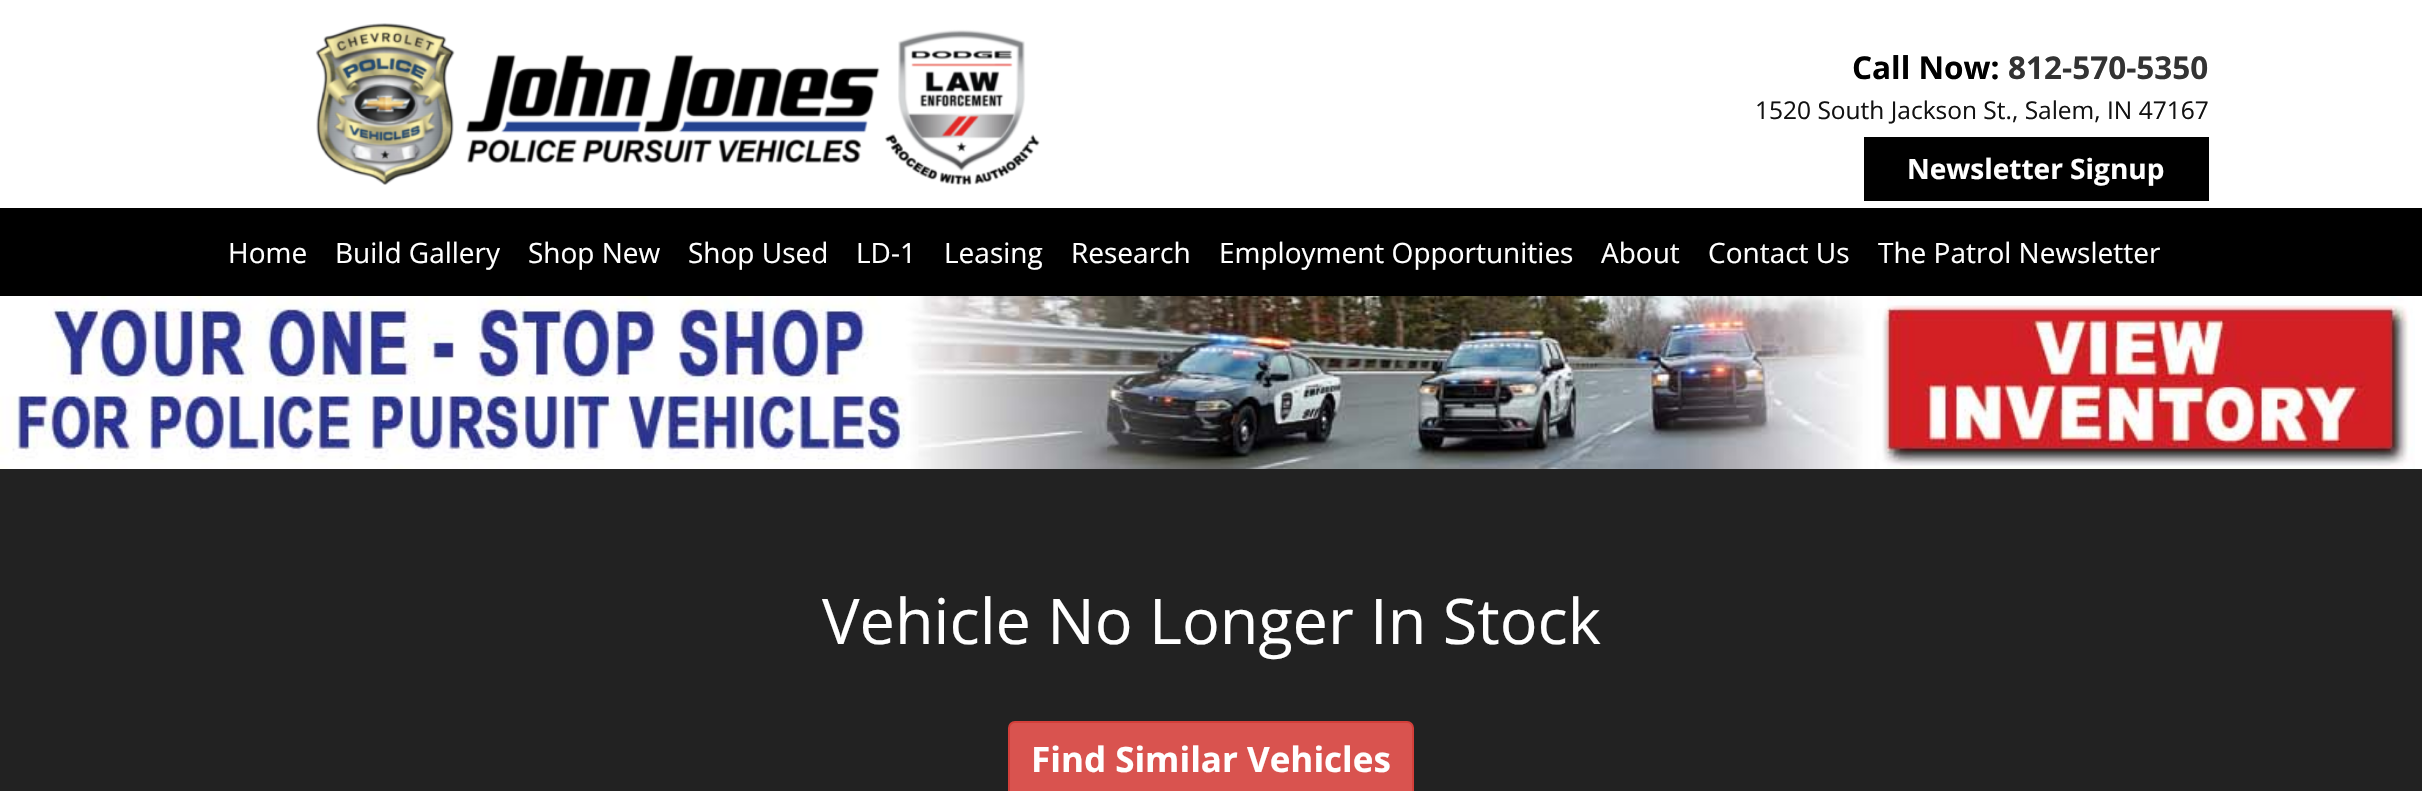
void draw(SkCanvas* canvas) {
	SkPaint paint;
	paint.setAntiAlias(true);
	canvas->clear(0xffffffff);
	canvas->drawImageRect(SkImages::DeferredFromEncodedData(SkData::MakeFromFileName("img1.png")), SkRect::MakeXYWH(315, 23, 725, 162), SkSamplingOptions());
	SkFont f1(fontMgr->matchFamilyStyle("Open Sans", SkFontStyle::Bold()), 31.5);
	f1.setSubpixel(true);
	paint.setColor(0xff000000);
	canvas->drawString("Call Now:", 1852, 79, f1, paint);
	paint.setColor(0xff333333);
	canvas->drawString("812-570-5350", 2008, 79, f1, paint);
	SkFont f2(fontMgr->matchFamilyStyle("Open Sans", SkFontStyle::Normal()), 24.5);
	f2.setSubpixel(true);
	paint.setColor(0xff121212);
	canvas->drawString("1520 South Jackson St., Salem, IN 47167", 1755, 119, f2, paint);
	paint.setColor(0xff000000);
	canvas->drawRect(SkRect::MakeXYWH(1864, 137, 345, 64), paint);
	SkFont f3(fontMgr->matchFamilyStyle("Open Sans", SkFontStyle::Bold()), 28);
	f3.setSubpixel(true);
	paint.setColor(0xffffffff);
	canvas->drawString("Newsletter Signup", 1907, 179, f3, paint);
	paint.setColor(0xff000000);
	canvas->drawRect(SkRect::MakeXYWH(0, 208, 2422, 88), paint);
	SkFont f4(fontMgr->matchFamilyStyle("Open Sans", SkFontStyle::Normal()), 28);
	f4.setSubpixel(true);
	paint.setColor(0xffffffff);
	canvas->drawString("Home", 228, 263, f4, paint);
	canvas->drawString("Build Gallery", 335, 263, f4, paint);
	canvas->drawString("Shop New", 528, 263, f4, paint);
	canvas->drawString("Shop Used", 688, 263, f4, paint);
	canvas->drawString("LD-1", 856, 263, f4, paint);
	canvas->drawString("Leasing", 944, 263, f4, paint);
	canvas->drawString("Research", 1071, 263, f4, paint);
	canvas->drawString("Employment Opportunities", 1219, 263, f4, paint);
	canvas->drawString("About", 1601, 263, f4, paint);
	canvas->drawString("Contact Us", 1708, 263, f4, paint);
	canvas->drawString("The Patrol Newsletter", 1878, 263, f4, paint);
	canvas->drawImageRect(SkImages::DeferredFromEncodedData(SkData::MakeFromFileName("img2.png")), SkRect::MakeXYWH(0, 296, 2415, 173), SkSamplingOptions());
	paint.setColor(0xff222222);
	canvas->drawRect(SkRect::MakeXYWH(0, 469, 2422, 322), paint);
	SkFont f5(fontMgr->matchFamilyStyle("Open Sans", SkFontStyle::Normal()), 63);
	f5.setSubpixel(true);
	paint.setColor(0xffffffff);
	canvas->drawString("Vehicle No Longer In Stock", 822, 644, f5, paint);
	paint.setColor(0xffd9534f);
	canvas->drawRoundRect(SkRect::MakeXYWH(1009, 722, 404, 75), 6, 6, paint);
	paint.setStroke(true);
	paint.setStrokeWidth(2);
	paint.setColor(0xffd43f3a);
	canvas->drawRoundRect(SkRect::MakeXYWH(1009, 722, 404, 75), 6, 6, paint);
	SkFont f6(fontMgr->matchFamilyStyle("Open Sans", SkFontStyle::Bold()), 35);
	f6.setSubpixel(true);
	paint.setStroke(false);
	paint.setColor(0xffffffff);
	canvas->drawString("Find Similar Vehicles", 1031, 772, f6, paint);
}
